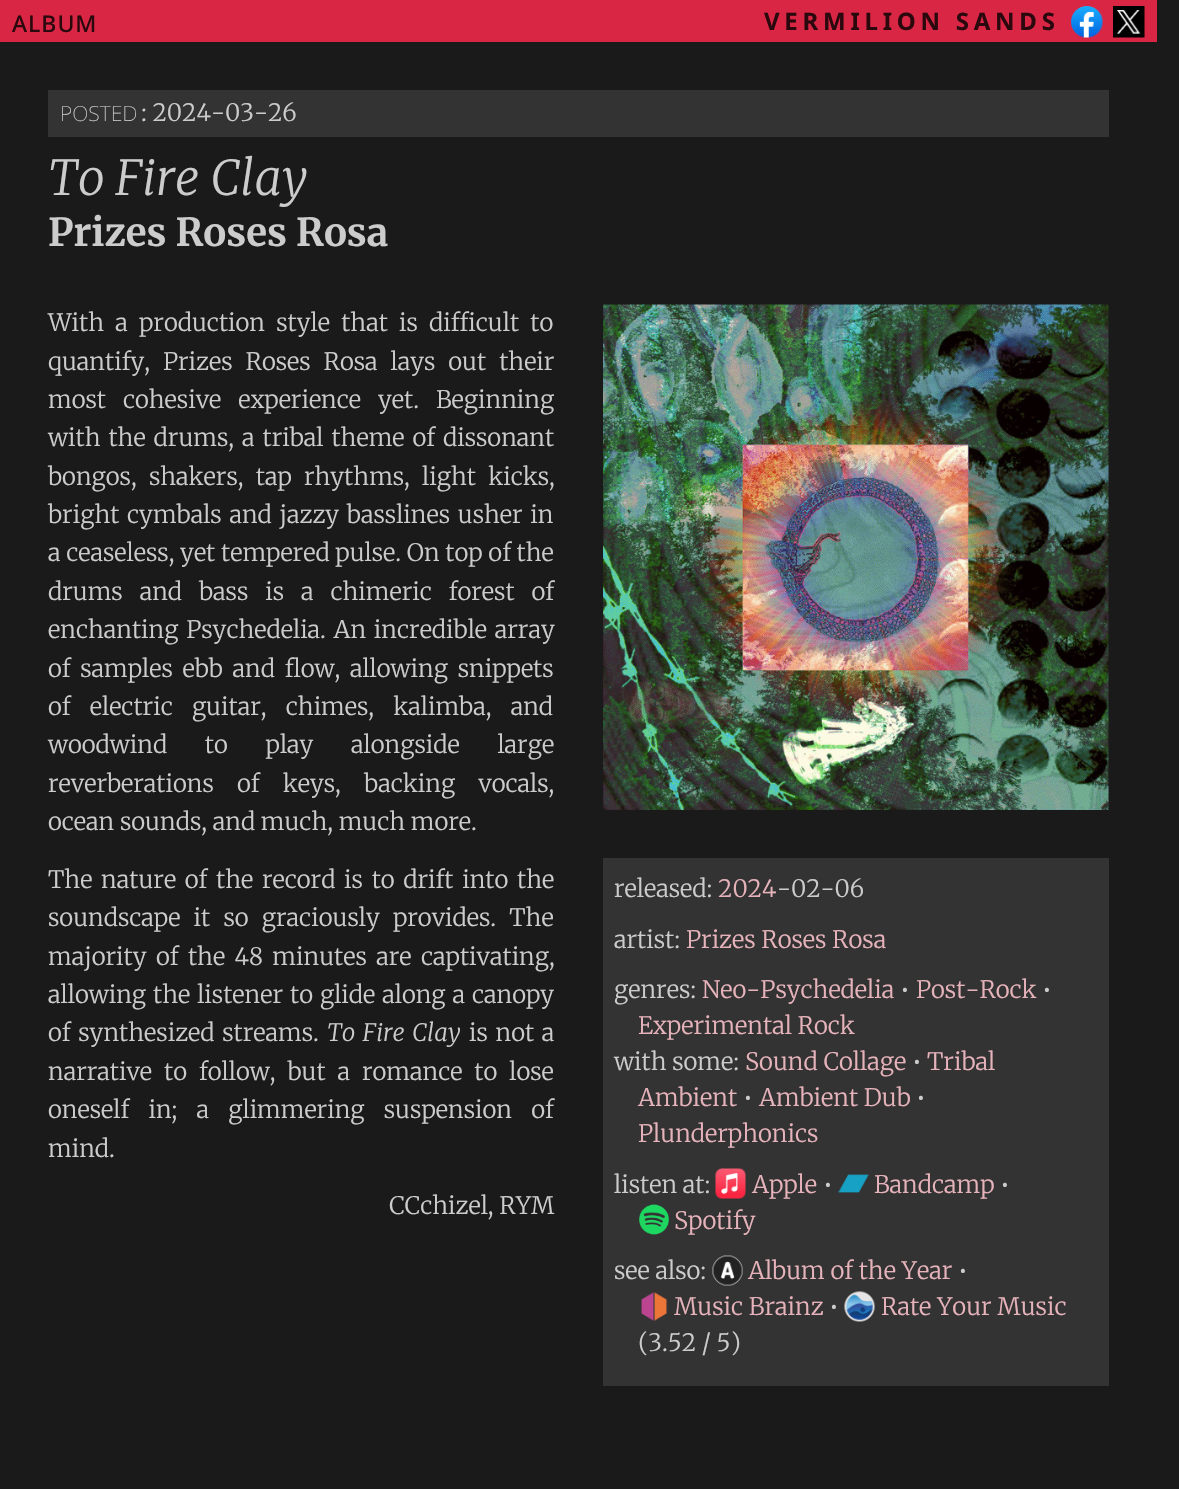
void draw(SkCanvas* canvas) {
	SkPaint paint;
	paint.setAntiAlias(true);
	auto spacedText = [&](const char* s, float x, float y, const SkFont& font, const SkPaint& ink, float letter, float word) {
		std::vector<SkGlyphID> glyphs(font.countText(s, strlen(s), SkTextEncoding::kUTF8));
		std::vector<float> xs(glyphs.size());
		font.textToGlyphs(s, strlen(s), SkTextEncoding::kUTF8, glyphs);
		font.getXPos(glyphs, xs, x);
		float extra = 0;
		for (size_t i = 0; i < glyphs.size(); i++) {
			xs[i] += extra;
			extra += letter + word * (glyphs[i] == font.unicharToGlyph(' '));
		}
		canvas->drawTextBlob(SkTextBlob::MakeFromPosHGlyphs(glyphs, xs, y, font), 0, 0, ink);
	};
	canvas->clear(0xff1a1a1a);
	paint.setColor(0xffd92644);
	canvas->drawRect(SkRect::MakeXYWH(0, 0, 1157, 42), paint);
	SkFont f1(fontMgr->matchFamilyStyle("Noto Sans", SkFontStyle(500, SkFontStyle::kNormal_Width, SkFontStyle::kUpright_Slant)), 23);
	f1.setSubpixel(true);
	paint.setColor(0xff2b080e);
	spacedText("ALBUM", 12, 32, f1, paint, 1, 0);
	SkFont f2(fontMgr->matchFamilyStyle("Noto Sans", SkFontStyle::Bold()), 24);
	f2.setSubpixel(true);
	spacedText("VERMILION SANDS", 764, 30, f2, paint, 4.75, 0);
	canvas->drawImageRect(SkImages::DeferredFromEncodedData(SkData::MakeFromFileName("img1.png")), SkRect::MakeXYWH(1071, 6, 32, 32), SkSamplingOptions());
	canvas->drawImageRect(SkImages::DeferredFromEncodedData(SkData::MakeFromFileName("img2.png")), SkRect::MakeXYWH(1113, 6, 32, 32), SkSamplingOptions());
	paint.setColor(0xff333333);
	canvas->drawRect(SkRect::MakeXYWH(48, 90, 1061, 47), paint);
	SkFont f3(fontMgr->matchFamilyStyle("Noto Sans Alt", SkFontStyle(100, SkFontStyle::kNormal_Width, SkFontStyle::kUpright_Slant)), 26.5);
	f3.setSubpixel(true);
	paint.setColor(0xffcccccc);
	canvas->drawString("posted", 60, 121, f3, paint);
	SkFont f4(fontMgr->matchFamilyStyle("Merriweather", SkFontStyle(300, SkFontStyle::kNormal_Width, SkFontStyle::kUpright_Slant)), 24);
	f4.setSubpixel(true);
	canvas->drawString(": 2024-03-26", 141, 121, f4, paint);
	SkFont f5(fontMgr->matchFamilyStyle("Merriweather", SkFontStyle(300, SkFontStyle::kNormal_Width, SkFontStyle::kItalic_Slant)), 48);
	f5.setSubpixel(true);
	canvas->drawString("To Fire Clay", 48, 195, f5, paint);
	SkFont f6(fontMgr->matchFamilyStyle("Merriweather", SkFontStyle::Bold()), 38.5);
	f6.setSubpixel(true);
	canvas->drawString("Prizes Roses Rosa", 48, 246, f6, paint);
	spacedText("With a production style that is difficult to", 48, 331, f4, paint, 0, 5.5);
	spacedText("quantify, Prizes Roses Rosa lays out their", 48, 370, f4, paint, 0, 7.25);
	spacedText("most cohesive experience yet. Beginning", 48, 408, f4, paint, 0, 11.25);
	spacedText("with the drums, a tribal theme of dissonant", 48, 446, f4, paint, 0, 2.25);
	spacedText("bongos, shakers, tap rhythms, light kicks,", 48, 485, f4, paint, 0, 6.5);
	spacedText("bright cymbals and jazzy basslines usher in", 48, 523, f4, paint, 0, 2);
	canvas->drawString("a ceaseless, yet tempered pulse. On top of the", 48, 561, f4, paint);
	spacedText("drums and bass is a chimeric forest of", 48, 600, f4, paint, 0, 11.25);
	spacedText("enchanting Psychedelia. An incredible array", 48, 638, f4, paint, 0, 2);
	spacedText("of samples ebb and flow, allowing snippets", 48, 677, f4, paint, 0, 4);
	spacedText("of electric guitar, chimes, kalimba, and", 48, 715, f4, paint, 0, 13.5);
	spacedText("woodwind to play alongside large", 48, 753, f4, paint, 0, 32);
	spacedText("reverberations of keys, backing vocals,", 48, 792, f4, paint, 0, 17.5);
	canvas->drawString("ocean sounds, and much, much more.", 48, 830, f4, paint);
	spacedText("The nature of the record is to drift into the", 48, 888, f4, paint, 0, 3);
	spacedText("soundscape it so graciously provides. The", 48, 926, f4, paint, 0, 7.5);
	spacedText("majority of the 48 minutes are captivating,", 48, 965, f4, paint, 0, 3.75);
	spacedText("allowing the listener to glide along a canopy", 48, 1003, f4, paint, 0, 1.25);
	spacedText("of synthesized streams.", 48, 1041, f4, paint, 0, 2);
	SkFont f7(fontMgr->matchFamilyStyle("Merriweather", SkFontStyle(300, SkFontStyle::kNormal_Width, SkFontStyle::kItalic_Slant)), 24);
	f7.setSubpixel(true);
	spacedText("To Fire Clay", 327, 1041, f7, paint, 0, 2);
	spacedText("is not a", 469, 1041, f4, paint, 0, 2);
	spacedText("narrative to follow, but a romance to lose", 48, 1080, f4, paint, 0, 6.25);
	spacedText("oneself in; a glimmering suspension of", 48, 1118, f4, paint, 0, 13.5);
	canvas->drawString("mind.", 48, 1157, f4, paint);
	canvas->drawString("CCchizel, RYM", 389, 1214, f4, paint);
	canvas->drawImageRect(SkImages::DeferredFromEncodedData(SkData::MakeFromFileName("img3.png")), SkRect::MakeXYWH(603, 304, 506, 506), SkSamplingOptions());
	paint.setColor(0xff333333);
	canvas->drawRect(SkRect::MakeXYWH(603, 858, 506, 528), paint);
	paint.setColor(0xffcccccc);
	canvas->drawString("released:", 614, 897, f4, paint);
	paint.setColor(0xffe6b3bb);
	canvas->drawString("2024", 718, 897, f4, paint);
	paint.setColor(0xffcccccc);
	canvas->drawString("-02-06", 777, 897, f4, paint);
	canvas->drawString("artist:", 614, 948, f4, paint);
	paint.setColor(0xffe6b3bb);
	canvas->drawString("Prizes Roses Rosa", 686, 948, f4, paint);
	paint.setColor(0xffcccccc);
	canvas->drawString("genres:", 614, 998, f4, paint);
	paint.setColor(0xffe6b3bb);
	canvas->drawString("Neo-Psychedelia", 702, 998, f4, paint);
	paint.setColor(0xffcccccc);
	canvas->drawString("•", 900, 998, f4, paint);
	paint.setColor(0xffe6b3bb);
	canvas->drawString("Post-Rock", 916, 998, f4, paint);
	paint.setColor(0xffcccccc);
	canvas->drawString("•", 1042, 998, f4, paint);
	paint.setColor(0xffe6b3bb);
	canvas->drawString("Experimental Rock", 638, 1034, f4, paint);
	paint.setColor(0xffcccccc);
	canvas->drawString("with some:", 614, 1070, f4, paint);
	paint.setColor(0xffe6b3bb);
	canvas->drawString("Sound Collage", 745, 1070, f4, paint);
	paint.setColor(0xffcccccc);
	canvas->drawString("•", 912, 1070, f4, paint);
	paint.setColor(0xffe6b3bb);
	canvas->drawString("Tribal", 927, 1070, f4, paint);
	canvas->drawString("Ambient", 638, 1106, f4, paint);
	paint.setColor(0xffcccccc);
	canvas->drawString("•", 743, 1106, f4, paint);
	paint.setColor(0xffe6b3bb);
	canvas->drawString("Ambient Dub", 759, 1106, f4, paint);
	paint.setColor(0xffcccccc);
	canvas->drawString("•", 916, 1106, f4, paint);
	paint.setColor(0xffe6b3bb);
	canvas->drawString("Plunderphonics", 638, 1142, f4, paint);
	paint.setColor(0xffcccccc);
	canvas->drawString("listen at:", 614, 1193, f4, paint);
	canvas->drawImageRect(SkImages::DeferredFromEncodedData(SkData::MakeFromFileName("img4.png")), SkRect::MakeXYWH(715, 1168, 31, 31), SkSamplingOptions());
	paint.setColor(0xffe6b3bb);
	canvas->drawString("Apple", 752, 1193, f4, paint);
	paint.setColor(0xffcccccc);
	canvas->drawString("•", 823, 1193, f4, paint);
	canvas->drawImageRect(SkImages::DeferredFromEncodedData(SkData::MakeFromFileName("img5.png")), SkRect::MakeXYWH(838, 1174, 31, 19), SkSamplingOptions());
	paint.setColor(0xffe6b3bb);
	canvas->drawString("Bandcamp", 874, 1193, f4, paint);
	paint.setColor(0xffcccccc);
	canvas->drawString("•", 1000, 1193, f4, paint);
	canvas->drawImageRect(SkImages::DeferredFromEncodedData(SkData::MakeFromFileName("img6.png")), SkRect::MakeXYWH(639, 1204, 30, 31), SkSamplingOptions());
	paint.setColor(0xffe6b3bb);
	canvas->drawString("Spotify", 674, 1229, f4, paint);
	paint.setColor(0xffcccccc);
	canvas->drawString("see also:", 614, 1279, f4, paint);
	canvas->drawImageRect(SkImages::DeferredFromEncodedData(SkData::MakeFromFileName("img7.png")), SkRect::MakeXYWH(712, 1255, 31, 31), SkSamplingOptions());
	paint.setColor(0xffe6b3bb);
	canvas->drawString("Album of the Year", 748, 1279, f4, paint);
	paint.setColor(0xffcccccc);
	canvas->drawString("•", 958, 1279, f4, paint);
	canvas->drawImageRect(SkImages::DeferredFromEncodedData(SkData::MakeFromFileName("img8.png")), SkRect::MakeXYWH(641, 1292, 27, 29), SkSamplingOptions());
	paint.setColor(0xffe6b3bb);
	canvas->drawString("Music Brainz", 674, 1315, f4, paint);
	paint.setColor(0xffcccccc);
	canvas->drawString("•", 829, 1315, f4, paint);
	canvas->drawImageRect(SkImages::DeferredFromEncodedData(SkData::MakeFromFileName("img9.png")), SkRect::MakeXYWH(844, 1291, 31, 31), SkSamplingOptions());
	paint.setColor(0xffe6b3bb);
	canvas->drawString("Rate Your Music", 881, 1315, f4, paint);
	paint.setColor(0xffcccccc);
	canvas->drawString("(3.52 / 5)", 638, 1351, f4, paint);
}
